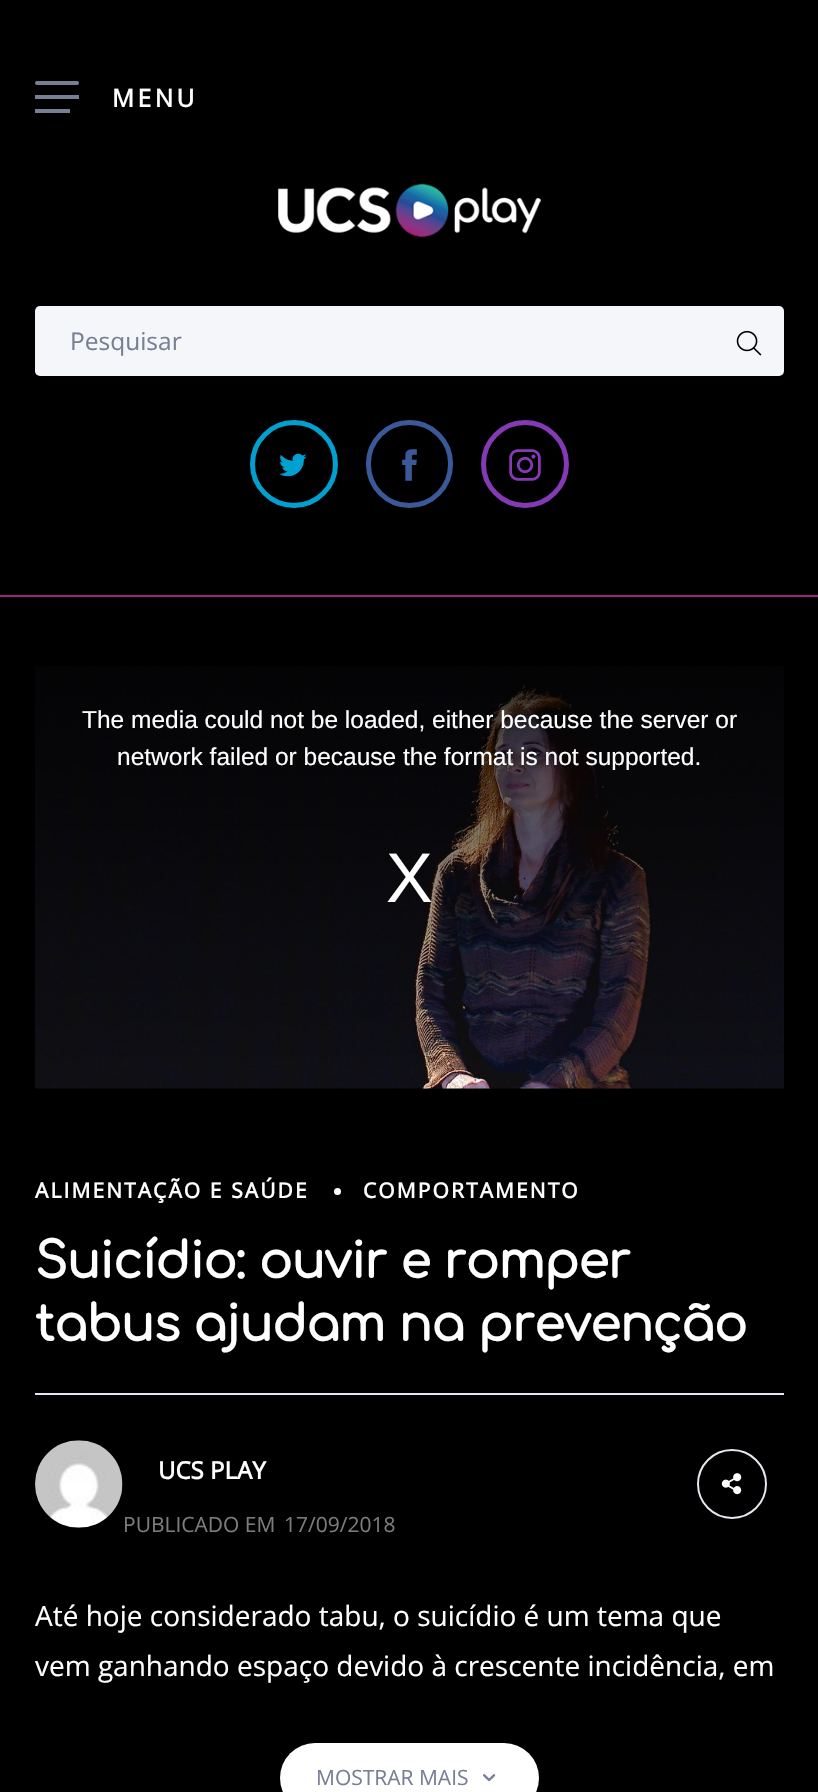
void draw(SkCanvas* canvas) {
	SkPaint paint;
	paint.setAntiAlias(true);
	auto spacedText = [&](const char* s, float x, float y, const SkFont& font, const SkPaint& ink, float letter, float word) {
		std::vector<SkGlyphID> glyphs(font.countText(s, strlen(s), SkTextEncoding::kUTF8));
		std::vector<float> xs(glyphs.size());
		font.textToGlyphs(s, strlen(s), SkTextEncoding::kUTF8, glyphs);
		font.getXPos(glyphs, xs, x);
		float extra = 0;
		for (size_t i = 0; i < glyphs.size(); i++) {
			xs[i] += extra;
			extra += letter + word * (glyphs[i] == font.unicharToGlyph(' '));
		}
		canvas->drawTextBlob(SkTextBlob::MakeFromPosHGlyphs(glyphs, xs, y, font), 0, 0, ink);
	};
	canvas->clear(0xff000000);
	paint.setColor(0xffa6217a);
	canvas->drawRect(SkRect::MakeXYWH(0, 595, 818, 2), paint);
	paint.setColor(0xff777f94);
	canvas->drawRoundRect(SkRect::MakeXYWH(35, 81, 44, 4), 2, 2, paint);
	canvas->drawRect(SkRect::MakeXYWH(35, 95, 44, 4), paint);
	canvas->drawRect(SkRect::MakeXYWH(35, 109, 35, 4), paint);
	SkFont f1(fontMgr->matchFamilyStyle("Open Sans", SkFontStyle::Bold()), 24.5);
	f1.setSubpixel(true);
	paint.setColor(0xffffffff);
	spacedText("MENU", 112, 107, f1, paint, 3.5, 0);
	canvas->drawImageRect(SkImages::DeferredFromEncodedData(SkData::MakeFromFileName("img1.png")), SkRect::MakeXYWH(278, 183, 263, 55), SkSamplingOptions());
	paint.setColor(0xfff5f6fa);
	canvas->drawRoundRect(SkRect::MakeXYWH(35, 306, 749, 70), 5, 5, paint);
	SkFont f2(fontMgr->matchFamilyStyle("Open Sans", SkFontStyle::Normal()), 24.5);
	f2.setSubpixel(true);
	paint.setColor(0xff777f94);
	canvas->drawString("Pesquisar", 70, 350, f2, paint);
	canvas->drawImageRect(SkImages::DeferredFromEncodedData(SkData::MakeFromFileName("img2.png")), SkRect::MakeXYWH(736, 330, 26, 26), SkSamplingOptions());
	paint.setStroke(true);
	paint.setStrokeWidth(5);
	paint.setColor(0xff00a0d1);
	canvas->drawCircle(294, 464, 41.5, paint);
	canvas->drawImageRect(SkImages::DeferredFromEncodedData(SkData::MakeFromFileName("img3.png")), SkRect::MakeXYWH(279, 453, 28, 24), SkSamplingOptions());
	paint.setColor(0xff3b5998);
	canvas->drawRoundRect(SkRect::MakeXYWH(368.5, 422.5, 82, 83), 41, 41, paint);
	canvas->drawImageRect(SkImages::DeferredFromEncodedData(SkData::MakeFromFileName("img4.png")), SkRect::MakeXYWH(402, 449, 15, 32), SkSamplingOptions());
	paint.setColor(0xff833ab4);
	canvas->drawCircle(525, 464, 41.5, paint);
	canvas->drawImageRect(SkImages::DeferredFromEncodedData(SkData::MakeFromFileName("img5.png")), SkRect::MakeXYWH(509, 449, 32, 32), SkSamplingOptions());
	canvas->drawImageRect(SkImages::DeferredFromEncodedData(SkData::MakeFromFileName("img6.png")), SkRect::MakeXYWH(35, 666, 749, 423), SkSamplingOptions());
	paint.setStroke(false);
	{
		const SkColor colors[] = {0xcc000000, 0x00000000};
		const float stops[] = {0, 1};
		const SkPoint ends[] = {{409, 667}, {410, 1089}};
		paint.setShader(SkGradientShader::MakeLinear(ends, colors, stops, 2, SkTileMode::kClamp));
		paint.setAlpha(255);
	}
	canvas->drawRect(SkRect::MakeXYWH(35, 667, 749, 412), paint);
	SkFont f3(fontMgr->matchFamilyStyle("Liberation Sans", SkFontStyle::Normal()), 24.5);
	f3.setSubpixel(true);
	paint.setShader(nullptr);
	paint.setColor(0xffffffff);
	canvas->drawString("The media could not be loaded, either because the server or", 82, 728, f3, paint);
	canvas->drawString("network failed or because the format is not supported.", 117, 765, f3, paint);
	SkFont f4(fontMgr->matchFamilyStyle("Liberation Sans", SkFontStyle::Normal()), 70);
	f4.setSubpixel(true);
	canvas->drawString("X", 386, 902, f4, paint);
	SkFont f5(fontMgr->matchFamilyStyle("Open Sans", SkFontStyle::Bold()), 21);
	f5.setSubpixel(true);
	spacedText("ALIMENTAÇÃO E SAÚDE", 35, 1198, f5, paint, 2.1, 0);
	canvas->drawCircle(337.5, 1191.5, 3.5, paint);
	spacedText("COMPORTAMENTO", 363, 1198, f5, paint, 2.1, 0);
	SkFont f6(fontMgr->matchFamilyStyle("Comfortaa", SkFontStyle::Bold()), 49);
	f6.setSubpixel(true);
	spacedText("Suicídio: ouvir e romper", 35, 1278, f6, paint, -0.5, 0);
	spacedText("tabus ajudam na prevenção", 35, 1341, f6, paint, -0.5, 0);
	paint.setColor(0xffe5e8ee);
	canvas->drawRect(SkRect::MakeXYWH(35, 1393, 749, 2), paint);
	canvas->drawImageRect(SkImages::DeferredFromEncodedData(SkData::MakeFromFileName("img7.png")), SkRect::MakeXYWH(35, 1440, 88, 88), SkSamplingOptions());
	SkFont f7(fontMgr->matchFamilyStyle("Open Sans", SkFontStyle::Bold()), 24);
	f7.setSubpixel(true);
	paint.setColor(0xffffffff);
	canvas->drawString("UCS PLAY", 158, 1479, f7, paint);
	SkFont f8(fontMgr->matchFamilyStyle("Open Sans", SkFontStyle::Normal()), 21);
	f8.setSubpixel(true);
	paint.setColor(0xff7c7c7c);
	canvas->drawString("PUBLICADO EM", 123, 1532, f8, paint);
	canvas->drawString("17/09/2018", 284, 1532, f8, paint);
	paint.setStroke(true);
	paint.setStrokeWidth(2);
	paint.setColor(0xffe5e8ee);
	canvas->drawCircle(732, 1484, 34, paint);
	canvas->drawImageRect(SkImages::DeferredFromEncodedData(SkData::MakeFromFileName("img8.png")), SkRect::MakeXYWH(721, 1473, 21, 22), SkSamplingOptions());
	SkFont f9(fontMgr->matchFamilyStyle("Open Sans", SkFontStyle::Normal()), 28);
	f9.setSubpixel(true);
	paint.setStroke(false);
	paint.setColor(0xffffffff);
	canvas->drawString("Até hoje considerado tabu, o suicídio é um tema que", 35, 1626, f9, paint);
	canvas->drawString("vem ganhando espaço devido à crescente incidência, em", 35, 1676, f9, paint);
	canvas->drawRoundRect(SkRect::MakeXYWH(280, 1743, 259, 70), 35, 35, paint);
	paint.setColor(0xff777f94);
	canvas->drawString("MOSTRAR MAIS", 316, 1785, f8, paint);
	canvas->drawImageRect(SkImages::DeferredFromEncodedData(SkData::MakeFromFileName("img9.png")), SkRect::MakeXYWH(483, 1774, 13, 8), SkSamplingOptions());
}
